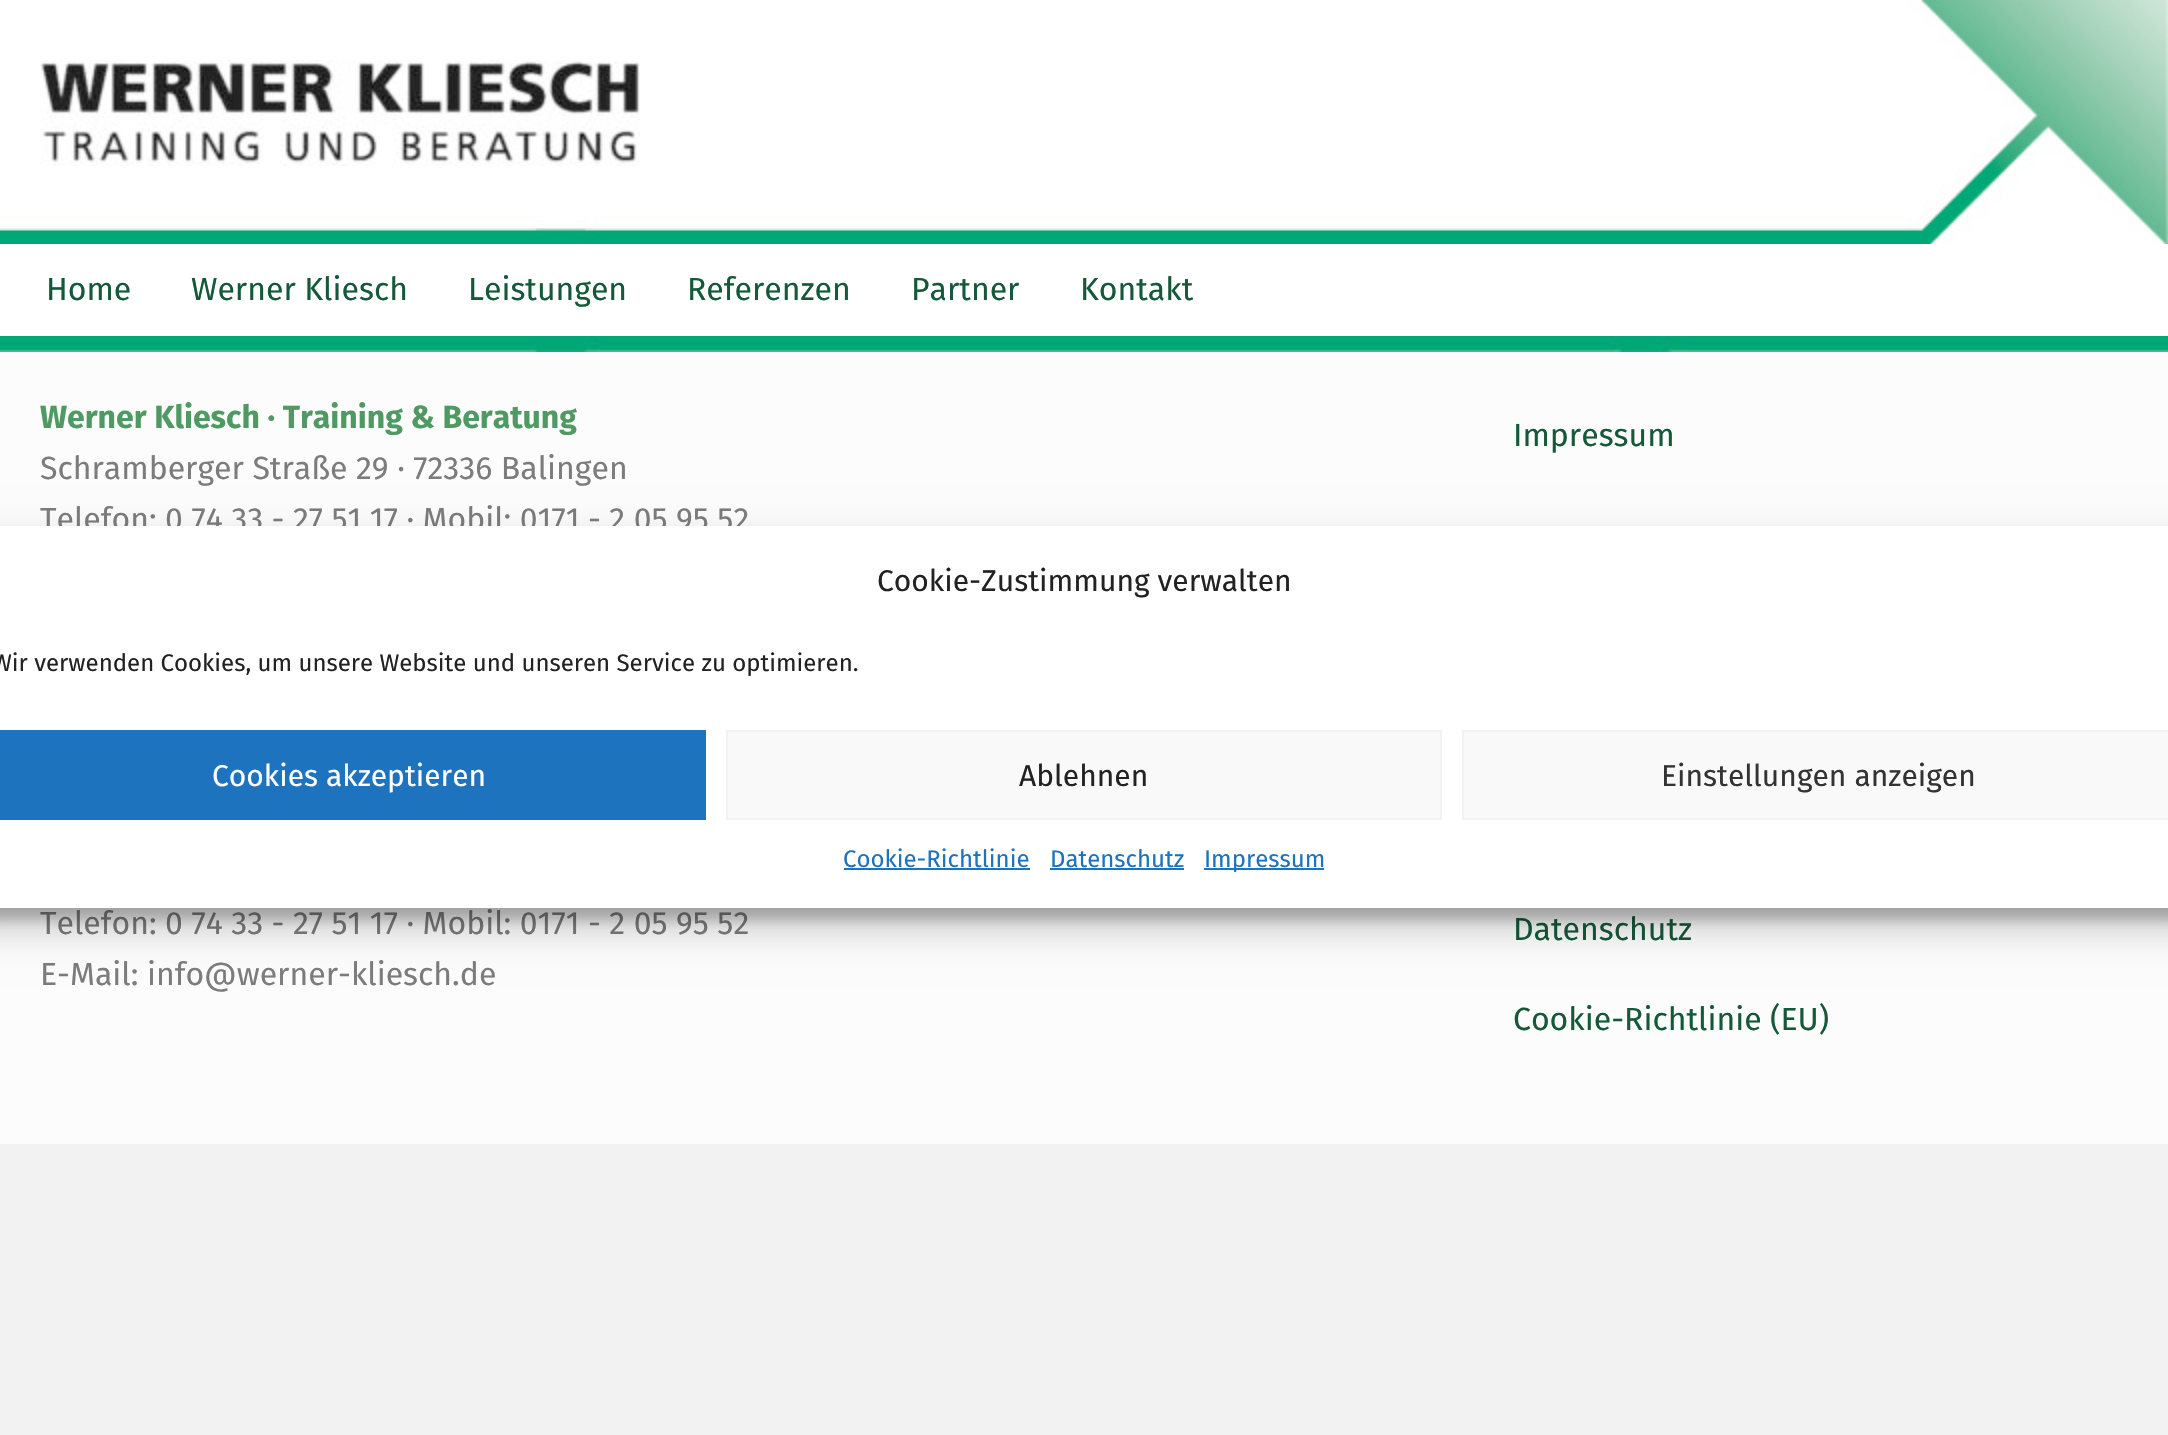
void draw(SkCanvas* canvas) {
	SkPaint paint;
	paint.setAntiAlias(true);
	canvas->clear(0xfff2f2f2);
	canvas->drawImageRect(SkImages::DeferredFromEncodedData(SkData::MakeFromFileName("img1.png")), SkRect::MakeXYWH(0, 0, 2168, 244), SkSamplingOptions());
	canvas->drawImageRect(SkImages::DeferredFromEncodedData(SkData::MakeFromFileName("img2.png")), SkRect::MakeXYWH(40, 60, 600, 106), SkSamplingOptions());
	paint.setColor(0xffffffff);
	canvas->drawRect(SkRect::MakeXYWH(0, 244, 2168, 92), paint);
	SkFont f1(fontMgr->matchFamilyStyle("Fira Sans", SkFontStyle::Normal()), 32);
	f1.setSubpixel(true);
	paint.setColor(0xff145939);
	canvas->drawString("Home", 46, 300, f1, paint);
	canvas->drawString("Werner Kliesch", 191, 300, f1, paint);
	canvas->drawString("Leistungen", 468, 300, f1, paint);
	canvas->drawString("Referenzen", 687, 300, f1, paint);
	canvas->drawString("Partner", 911, 300, f1, paint);
	canvas->drawString("Kontakt", 1080, 300, f1, paint);
	canvas->drawImageRect(SkImages::DeferredFromEncodedData(SkData::MakeFromFileName("img3.png")), SkRect::MakeXYWH(0, 336, 2168, 16), SkSamplingOptions());
	paint.setColor(0xfffcfcfc);
	canvas->drawRect(SkRect::MakeXYWH(0, 352, 2168, 174), paint);
	SkFont f2(fontMgr->matchFamilyStyle("Fira Sans", SkFontStyle::Bold()), 32);
	f2.setSubpixel(true);
	paint.setColor(0xff4f9a62);
	canvas->drawString("Werner Kliesch · Training & Beratung", 40, 428, f2, paint);
	paint.setColor(0xff7c7c7c);
	canvas->drawString("Schramberger Straße 29 · 72336 Balingen", 40, 479, f1, paint);
	canvas->drawString("Telefon: 0 74 33 - 27 51 17 · Mobil: 0171 - 2 05 95 52", 40, 530, f1, paint);
	paint.setColor(0xff145939);
	canvas->drawString("Impressum", 1513, 446, f1, paint);
	paint.setColor(0xfffcfcfc);
	canvas->drawRect(SkRect::MakeXYWH(0, 908, 2168, 236), paint);
	paint.setColor(0xff7c7c7c);
	canvas->drawString("Telefon: 0 74 33 - 27 51 17 · Mobil: 0171 - 2 05 95 52", 40, 934, f1, paint);
	canvas->drawString("E-Mail: info@werner-kliesch.de", 40, 985, f1, paint);
	paint.setColor(0xff145939);
	canvas->drawString("Datenschutz", 1513, 940, f1, paint);
	canvas->drawString("Cookie-Richtlinie (EU)", 1513, 1030, f1, paint);
	paint.setColor(0x3b000000);
	paint.setMaskFilter(SkMaskFilter::MakeBlur(kNormal_SkBlurStyle, 6));
	canvas->drawRect(SkRect::MakeXYWH(-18, 538, 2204, 382), paint);
	paint.setMaskFilter(nullptr);
	paint.setColor(0x30000000);
	paint.setMaskFilter(SkMaskFilter::MakeBlur(kNormal_SkBlurStyle, 20));
	canvas->drawRect(SkRect::MakeXYWH(-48, 546, 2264, 382), paint);
	paint.setMaskFilter(nullptr);
	paint.setColor(0xffffffff);
	canvas->drawRect(SkRect::MakeXYWH(0, 526, 2168, 382), paint);
	SkFont f3(fontMgr->matchFamilyStyle("Fira Sans", SkFontStyle::Normal()), 30);
	f3.setSubpixel(true);
	paint.setColor(0xff222222);
	canvas->drawString("Cookie-Zustimmung verwalten", 877, 591, f3, paint);
	SkFont f4(fontMgr->matchFamilyStyle("Fira Sans", SkFontStyle::Normal()), 24);
	f4.setSubpixel(true);
	canvas->drawString("Wir verwenden Cookies, um unsere Website und unseren Service zu optimieren.", -8, 671, f4, paint);
	paint.setColor(0xff1e73be);
	canvas->drawRect(SkRect::MakeXYWH(0, 730, 706, 90), paint);
	paint.setColor(0xffffffff);
	canvas->drawString("Cookies akzeptieren", 212, 786, f3, paint);
	paint.setColor(0xfff9f9f9);
	canvas->drawRect(SkRect::MakeXYWH(727, 731, 714, 88), paint);
	paint.setStroke(true);
	paint.setStrokeWidth(2);
	paint.setColor(0xfff2f2f2);
	canvas->drawRect(SkRect::MakeXYWH(727, 731, 714, 88), paint);
	paint.setStroke(false);
	paint.setColor(0xff222222);
	canvas->drawString("Ablehnen", 1019, 786, f3, paint);
	paint.setColor(0xfff9f9f9);
	canvas->drawRect(SkRect::MakeXYWH(1463, 731, 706, 88), paint);
	paint.setStroke(true);
	paint.setColor(0xfff2f2f2);
	canvas->drawRect(SkRect::MakeXYWH(1463, 731, 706, 88), paint);
	paint.setStroke(false);
	paint.setColor(0xff333333);
	canvas->drawString("Einstellungen anzeigen", 1661, 786, f3, paint);
	paint.setColor(0xff1e73be);
	canvas->drawString("Cookie-Richtlinie", 843, 867, f4, paint);
	canvas->drawRect(SkRect::MakeXYWH(844, 868, 186, 2), paint);
	canvas->drawString("Datenschutz", 1050, 867, f4, paint);
	canvas->drawRect(SkRect::MakeXYWH(1050, 868, 134, 2), paint);
	canvas->drawRect(SkRect::MakeXYWH(1204, 868, 120, 2), paint);
	canvas->drawString("Impressum", 1204, 867, f4, paint);
}
